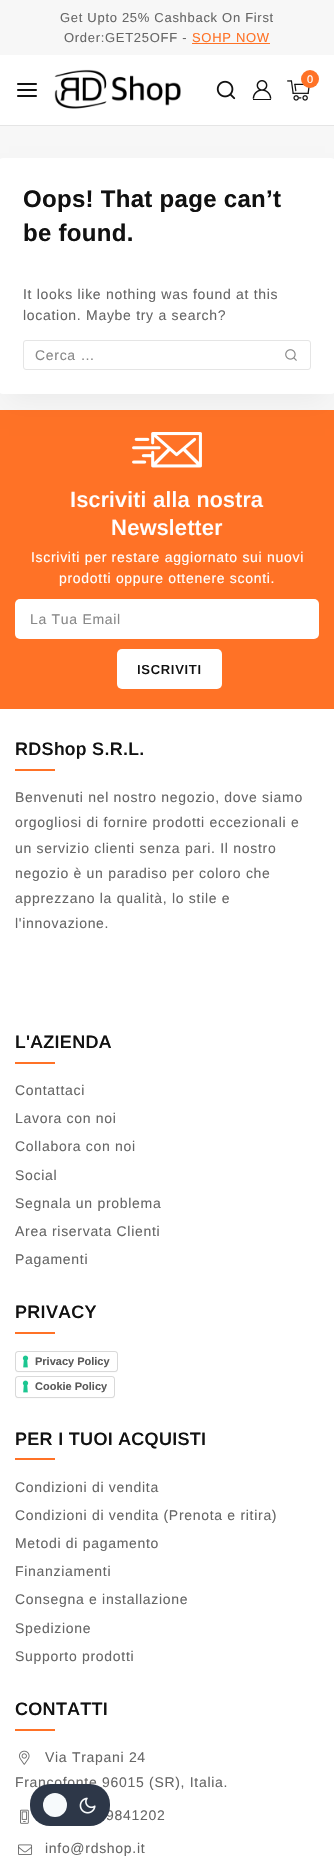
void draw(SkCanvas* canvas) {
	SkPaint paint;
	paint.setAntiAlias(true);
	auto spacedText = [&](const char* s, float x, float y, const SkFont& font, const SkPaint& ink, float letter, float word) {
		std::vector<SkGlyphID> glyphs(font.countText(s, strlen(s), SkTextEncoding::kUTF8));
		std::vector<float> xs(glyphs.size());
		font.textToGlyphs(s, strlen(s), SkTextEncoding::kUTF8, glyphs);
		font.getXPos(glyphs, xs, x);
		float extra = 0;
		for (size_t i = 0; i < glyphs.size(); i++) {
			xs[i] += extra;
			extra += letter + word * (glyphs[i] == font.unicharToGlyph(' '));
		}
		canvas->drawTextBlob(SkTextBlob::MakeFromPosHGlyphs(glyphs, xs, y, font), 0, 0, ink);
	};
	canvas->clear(0xfff7f7f7);
	paint.setColor(0xffffffff);
	canvas->drawRect(SkRect::MakeXYWH(0, 55, 334, 70), paint);
	SkFont f1(fontMgr->matchFamilyStyle("Arimo", SkFontStyle::Normal()), 13);
	f1.setSubpixel(true);
	paint.setColor(0xff666666);
	spacedText("Get Upto 25% Cashback On First", 60, 22, f1, paint, 0.7, 0);
	spacedText("Order:GET25OFF -", 64, 42, f1, paint, 0.7, 0);
	paint.setColor(0xffff7226);
	spacedText("SOHP NOW", 192, 42, f1, paint, 0.7, 0);
	canvas->drawRect(SkRect::MakeXYWH(192, 43, 78, 1), paint);
	paint.setColor(0xffe5e5e5);
	canvas->drawRect(SkRect::MakeXYWH(0, 125, 334, 1), paint);
	canvas->drawImageRect(SkImages::DeferredFromEncodedData(SkData::MakeFromFileName("img1.png")), SkRect::MakeXYWH(17, 83, 20, 14), SkSamplingOptions());
	canvas->drawImageRect(SkImages::DeferredFromEncodedData(SkData::MakeFromFileName("img2.png")), SkRect::MakeXYWH(54, 69, 127, 40), SkSamplingOptions());
	canvas->drawImageRect(SkImages::DeferredFromEncodedData(SkData::MakeFromFileName("img3.png")), SkRect::MakeXYWH(216, 80, 20, 20), SkSamplingOptions());
	canvas->drawImageRect(SkImages::DeferredFromEncodedData(SkData::MakeFromFileName("img4.png")), SkRect::MakeXYWH(252, 80, 20, 20), SkSamplingOptions());
	canvas->drawImageRect(SkImages::DeferredFromEncodedData(SkData::MakeFromFileName("img5.png")), SkRect::MakeXYWH(287, 80, 23, 21), SkSamplingOptions());
	paint.setColor(0xffff7226);
	canvas->drawCircle(310, 79, 9, paint);
	SkFont f2(fontMgr->matchFamilyStyle("Arimo", SkFontStyle::Normal()), 11);
	f2.setSubpixel(true);
	paint.setColor(0xffffffff);
	canvas->drawString("0", 307, 83, f2, paint);
	paint.setColor(0xffff7226);
	canvas->drawRect(SkRect::MakeXYWH(0, 410, 334, 299), paint);
	paint.setColor(0x0d000000);
	paint.setMaskFilter(SkMaskFilter::MakeBlur(kNormal_SkBlurStyle, 12.5));
	canvas->drawRect(SkRect::MakeXYWH(9, 183, 316, 216), paint);
	paint.setMaskFilter(nullptr);
	paint.setColor(0xffffffff);
	canvas->drawRoundRect(SkRect::MakeXYWH(-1, 158, 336, 236), 4, 4, paint);
	SkFont f3(fontMgr->matchFamilyStyle("Arimo", SkFontStyle::Bold()), 24);
	f3.setSubpixel(true);
	paint.setColor(0xff111111);
	spacedText("Oops! That page can’t", 23, 207, f3, paint, 0.3, 0);
	spacedText("be found.", 23, 241, f3, paint, 0.3, 0);
	SkFont f4(fontMgr->matchFamilyStyle("Arimo", SkFontStyle::Normal()), 14);
	f4.setSubpixel(true);
	paint.setColor(0xff666666);
	spacedText("It looks like nothing was found at this", 23, 299, f4, paint, 0.7, 0);
	spacedText("location. Maybe try a search?", 23, 320, f4, paint, 0.7, 0);
	paint.setStroke(true);
	paint.setStrokeWidth(1);
	paint.setColor(0xffe5e5e5);
	canvas->drawRoundRect(SkRect::MakeXYWH(23.5, 340.5, 287, 29), 2.5, 2.5, paint);
	paint.setStroke(false);
	paint.setColor(0xff888888);
	spacedText("Cerca …", 35, 360, f4, paint, 0.7, 0);
	canvas->drawImageRect(SkImages::DeferredFromEncodedData(SkData::MakeFromFileName("img6.png")), SkRect::MakeXYWH(285, 349, 12, 12), SkSamplingOptions());
	paint.setColor(0xffffffff);
	canvas->drawRect(SkRect::MakeXYWH(0, 709, 334, 1147), paint);
	canvas->drawImageRect(SkImages::DeferredFromEncodedData(SkData::MakeFromFileName("img7.png")), SkRect::MakeXYWH(132, 432, 70, 36), SkSamplingOptions());
	SkFont f5(fontMgr->matchFamilyStyle("Arimo", SkFontStyle(600, SkFontStyle::kNormal_Width, SkFontStyle::kUpright_Slant)), 22);
	f5.setSubpixel(true);
	spacedText("Iscriviti alla nostra", 70, 507, f5, paint, 0.3, 0);
	spacedText("Newsletter", 111, 535, f5, paint, 0.3, 0);
	spacedText("Iscriviti per restare aggiornato sui nuovi", 31, 562, f4, paint, 0.7, 0);
	spacedText("prodotti oppure ottenere sconti.", 59, 583, f4, paint, 0.7, 0);
	canvas->drawRoundRect(SkRect::MakeXYWH(15, 599, 304, 40), 5, 5, paint);
	paint.setColor(0xff888888);
	spacedText("La Tua Email", 30, 624, f4, paint, 0.7, 0);
	paint.setColor(0xffffffff);
	canvas->drawRoundRect(SkRect::MakeXYWH(117, 649, 105, 40), 5, 5, paint);
	SkFont f6(fontMgr->matchFamilyStyle("Arimo", SkFontStyle(600, SkFontStyle::kNormal_Width, SkFontStyle::kUpright_Slant)), 13);
	f6.setSubpixel(true);
	paint.setColor(0xff111111);
	spacedText("ISCRIVITI", 137, 674, f6, paint, 0.7, 0);
	SkFont f7(fontMgr->matchFamilyStyle("Arimo", SkFontStyle(600, SkFontStyle::kNormal_Width, SkFontStyle::kUpright_Slant)), 18);
	f7.setSubpixel(true);
	spacedText("RDShop S.R.L.", 15, 755, f7, paint, 0.3, 0);
	paint.setColor(0xffff7226);
	canvas->drawRect(SkRect::MakeXYWH(15, 769, 40, 2), paint);
	paint.setColor(0xff666666);
	spacedText("Benvenuti nel nostro negozio, dove siamo", 15, 802, f4, paint, 0.7, 0);
	spacedText("orgogliosi di fornire prodotti eccezionali e", 15, 827, f4, paint, 0.7, 0);
	spacedText("un servizio clienti senza pari. Il nostro", 15, 853, f4, paint, 0.7, 0);
	spacedText("negozio è un paradiso per coloro che", 15, 878, f4, paint, 0.7, 0);
	spacedText("apprezzano la qualità, lo stile e", 15, 903, f4, paint, 0.7, 0);
	spacedText("l'innovazione.", 15, 928, f4, paint, 0.7, 0);
	paint.setColor(0xff111111);
	spacedText("L'AZIENDA", 15, 1048, f7, paint, 0.3, 0);
	paint.setColor(0xffff7226);
	canvas->drawRect(SkRect::MakeXYWH(15, 1062, 40, 2), paint);
	paint.setColor(0xff666666);
	spacedText("Contattaci", 15, 1095, f4, paint, 0.7, 0);
	spacedText("Lavora con noi", 15, 1123, f4, paint, 0.7, 0);
	spacedText("Collabora con noi", 15, 1151, f4, paint, 0.7, 0);
	spacedText("Social", 15, 1180, f4, paint, 0.7, 0);
	spacedText("Segnala un problema", 15, 1208, f4, paint, 0.7, 0);
	spacedText("Area riservata Clienti", 15, 1236, f4, paint, 0.7, 0);
	spacedText("Pagamenti", 15, 1264, f4, paint, 0.7, 0);
	paint.setColor(0xff111111);
	spacedText("PRIVACY", 15, 1318, f7, paint, 0.3, 0);
	paint.setColor(0xffff7226);
	canvas->drawRect(SkRect::MakeXYWH(15, 1332, 40, 2), paint);
	paint.setColor(0x26000000);
	paint.setMaskFilter(SkMaskFilter::MakeBlur(kNormal_SkBlurStyle, 0.5));
	canvas->drawRoundRect(SkRect::MakeXYWH(16, 1353, 101, 19), 2, 2, paint);
	paint.setMaskFilter(nullptr);
	paint.setColor(0xffffffff);
	canvas->drawRoundRect(SkRect::MakeXYWH(15, 1351, 103, 21), 3, 3, paint);
	canvas->drawImageRect(SkImages::DeferredFromEncodedData(SkData::MakeFromFileName("img8.png")), SkRect::MakeXYWH(22, 1355, 7, 13), SkSamplingOptions());
	paint.setStroke(true);
	paint.setColor(0x26000000);
	canvas->drawRoundRect(SkRect::MakeXYWH(15.5, 1351.5, 102, 20), 2.5, 2.5, paint);
	SkFont f8(fontMgr->matchFamilyStyle("Liberation Sans", SkFontStyle::Bold()), 11);
	f8.setSubpixel(true);
	paint.setStroke(false);
	paint.setColor(0xff595959);
	canvas->drawString("Privacy Policy", 35, 1365, f8, paint);
	paint.setColor(0x26000000);
	paint.setMaskFilter(SkMaskFilter::MakeBlur(kNormal_SkBlurStyle, 0.5));
	canvas->drawRoundRect(SkRect::MakeXYWH(16, 1378, 98, 20), 2, 2, paint);
	paint.setMaskFilter(nullptr);
	paint.setColor(0xffffffff);
	canvas->drawRoundRect(SkRect::MakeXYWH(15, 1376, 100, 22), 3, 3, paint);
	canvas->drawImageRect(SkImages::DeferredFromEncodedData(SkData::MakeFromFileName("img8.png")), SkRect::MakeXYWH(22, 1380, 7, 13), SkSamplingOptions());
	paint.setStroke(true);
	paint.setColor(0x26000000);
	canvas->drawRoundRect(SkRect::MakeXYWH(15.5, 1376.5, 99, 21), 2.5, 2.5, paint);
	paint.setStroke(false);
	paint.setColor(0xff595959);
	canvas->drawString("Cookie Policy", 35, 1390, f8, paint);
	paint.setColor(0xff111111);
	spacedText("PER I TUOI ACQUISTI", 15, 1445, f7, paint, 0.3, 0);
	paint.setColor(0xffff7226);
	canvas->drawRect(SkRect::MakeXYWH(15, 1458, 40, 2), paint);
	paint.setColor(0xff666666);
	spacedText("Condizioni di vendita", 15, 1492, f4, paint, 0.7, 0);
	spacedText("Condizioni di vendita (Prenota e ritira)", 15, 1520, f4, paint, 0.7, 0);
	spacedText("Metodi di pagamento", 15, 1548, f4, paint, 0.7, 0);
	spacedText("Finanziamenti", 15, 1576, f4, paint, 0.7, 0);
	spacedText("Consegna e installazione", 15, 1604, f4, paint, 0.7, 0);
	spacedText("Spedizione", 15, 1633, f4, paint, 0.7, 0);
	spacedText("Supporto prodotti", 15, 1661, f4, paint, 0.7, 0);
	paint.setColor(0xff111111);
	spacedText("CONTATTI", 15, 1715, f7, paint, 0.3, 0);
	paint.setColor(0xffff7226);
	canvas->drawRect(SkRect::MakeXYWH(15, 1729, 40, 2), paint);
	canvas->drawImageRect(SkImages::DeferredFromEncodedData(SkData::MakeFromFileName("img9.png")), SkRect::MakeXYWH(19, 1750, 11, 15), SkSamplingOptions());
	paint.setColor(0xff666666);
	spacedText("Via Trapani 24", 45, 1762, f4, paint, 0.7, 0);
	spacedText("Francofonte 96015 (SR), Italia.", 15, 1787, f4, paint, 0.7, 0);
	canvas->drawImageRect(SkImages::DeferredFromEncodedData(SkData::MakeFromFileName("img10.png")), SkRect::MakeXYWH(20, 1809, 9, 15), SkSamplingOptions());
	spacedText("9841202", 106, 1820, f4, paint, 0.7, 0);
	canvas->drawImageRect(SkImages::DeferredFromEncodedData(SkData::MakeFromFileName("img11.png")), SkRect::MakeXYWH(18, 1844, 15, 11), SkSamplingOptions());
	spacedText("info@rdshop.it", 45, 1853, f4, paint, 0.7, 0);
	paint.setColor(0xff2d3748);
	canvas->drawRoundRect(SkRect::MakeXYWH(30, 1784, 80, 42), 20, 20, paint);
	paint.setColor(0xfff7fafc);
	canvas->drawCircle(55, 1805, 12, paint);
	canvas->drawImageRect(SkImages::DeferredFromEncodedData(SkData::MakeFromFileName("img12.png")), SkRect::MakeXYWH(79, 1797, 17, 17), SkSamplingOptions());
}
